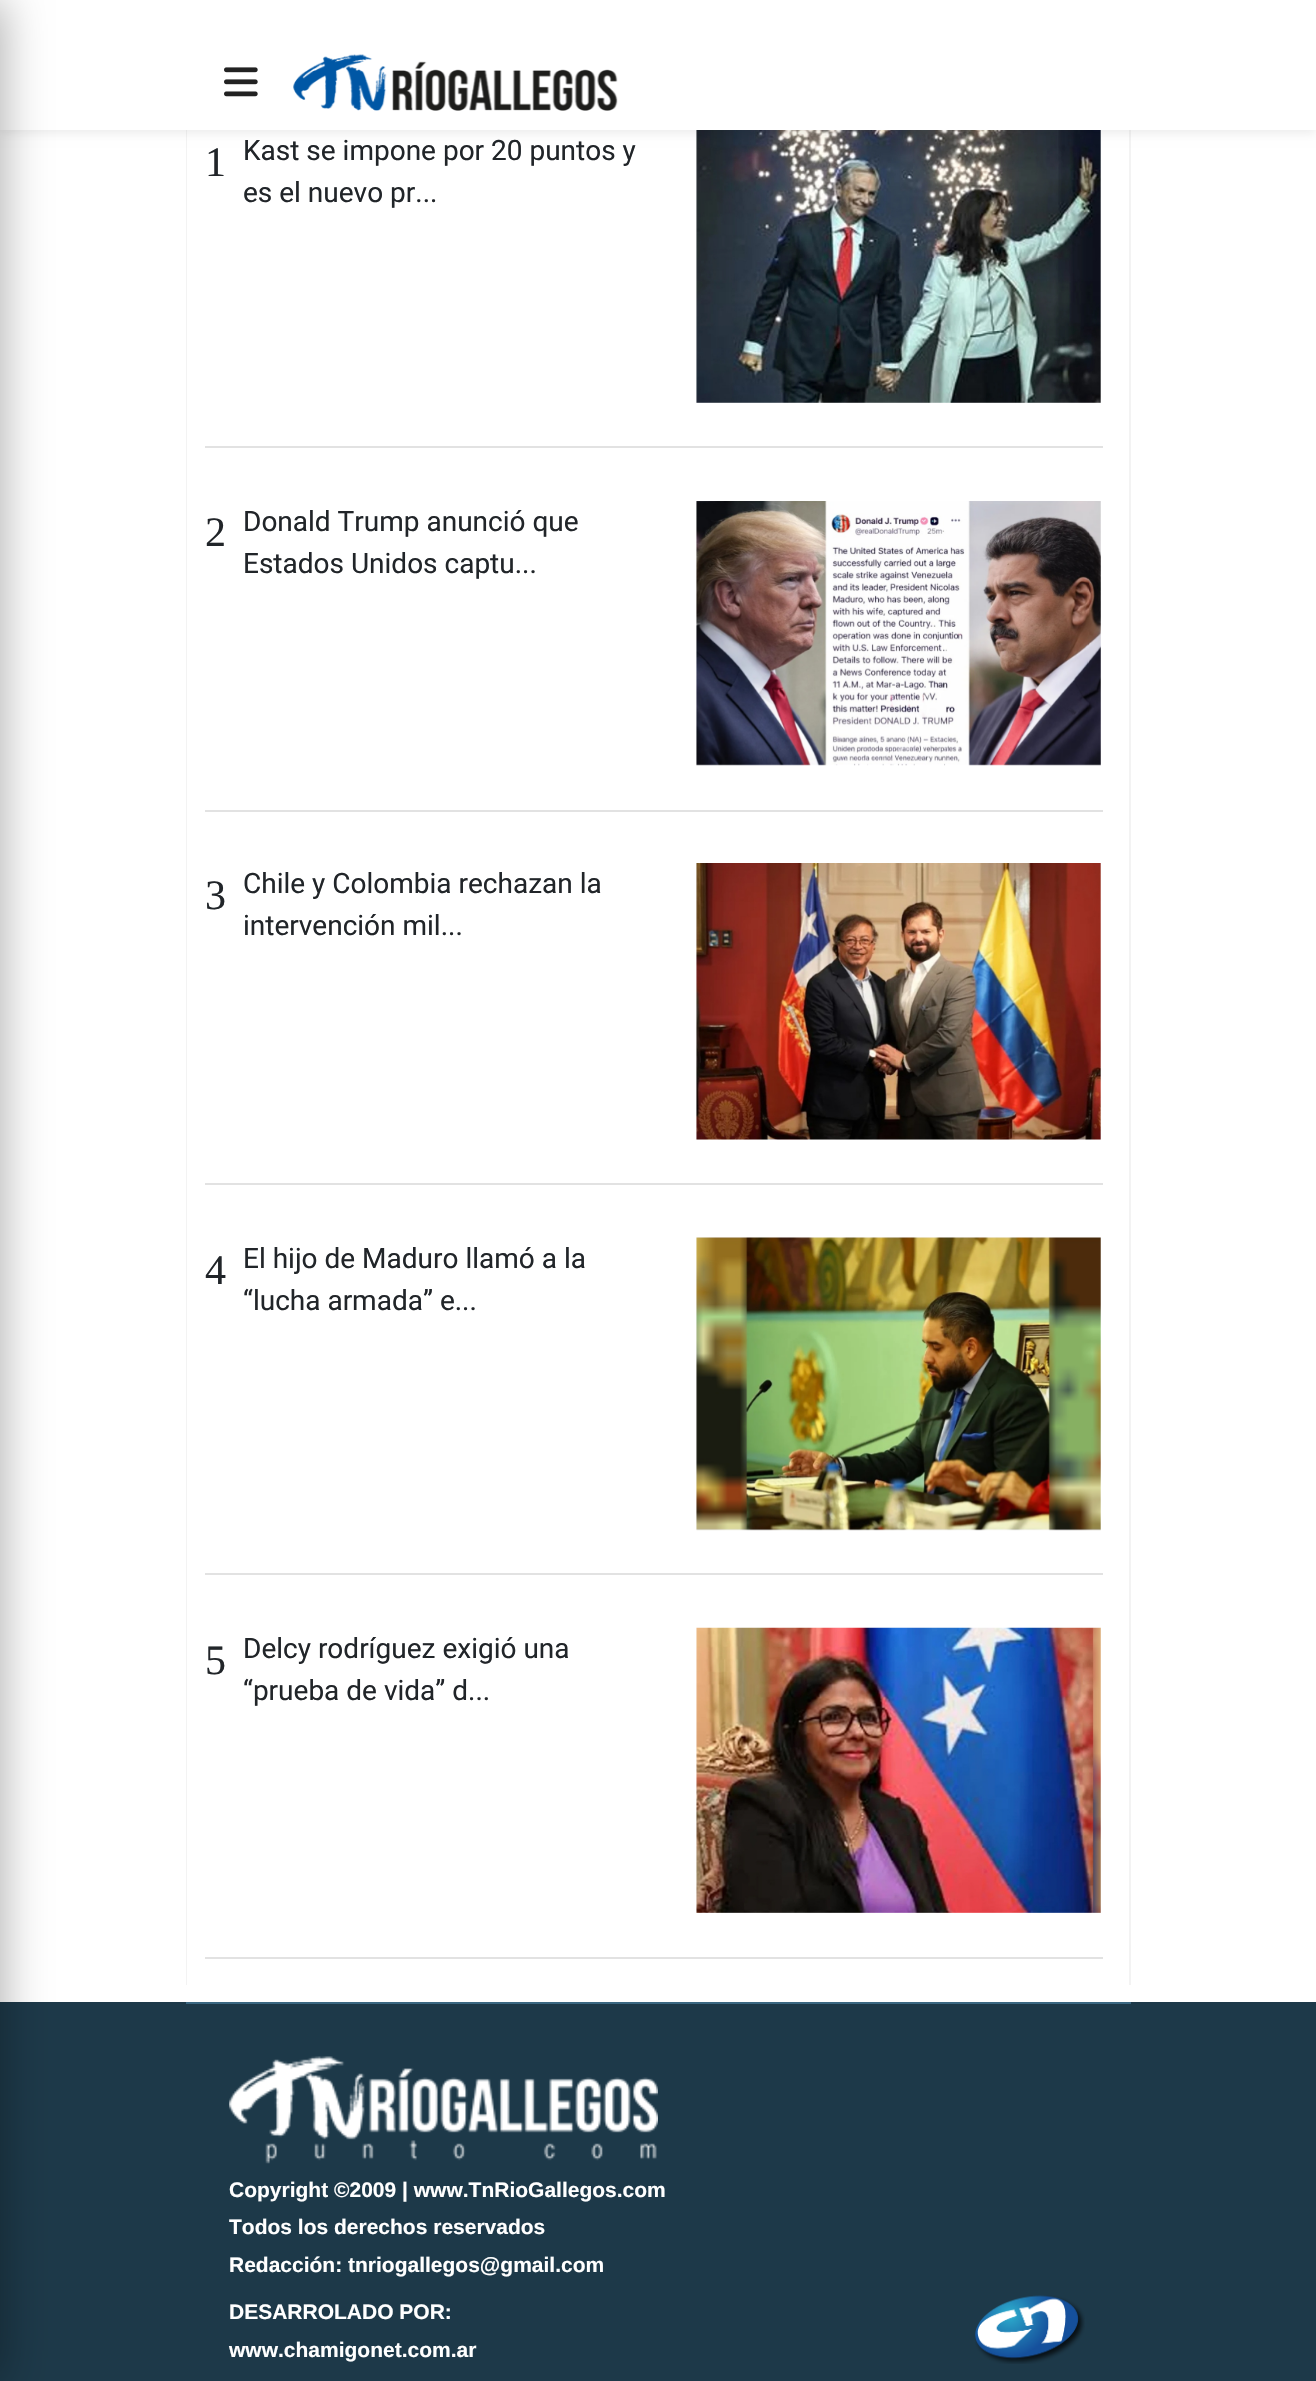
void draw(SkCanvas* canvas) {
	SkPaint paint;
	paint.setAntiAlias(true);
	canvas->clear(0xffffffff);
	paint.setColor(0xfff3f3f3);
	canvas->drawRect(SkRect::MakeXYWH(1129, 130, 2, 1855), paint);
	canvas->drawRect(SkRect::MakeXYWH(186, 130, 1, 1855), paint);
	canvas->drawImageRect(SkImages::DeferredFromEncodedData(SkData::MakeFromFileName("img3.png")), SkRect::MakeXYWH(696, 130, 405, 273), SkSamplingOptions());
	paint.setColor(0x14000000);
	paint.setMaskFilter(SkMaskFilter::MakeBlur(kNormal_SkBlurStyle, 5));
	canvas->drawRect(SkRect::MakeXYWH(0, 4, 1316, 129), paint);
	paint.setMaskFilter(nullptr);
	paint.setColor(0xffffffff);
	canvas->drawRect(SkRect::MakeXYWH(0, 0, 1316, 130), paint);
	canvas->drawImageRect(SkImages::DeferredFromEncodedData(SkData::MakeFromFileName("img1.png")), SkRect::MakeXYWH(224, 67, 34, 30), SkSamplingOptions());
	canvas->drawImageRect(SkImages::DeferredFromEncodedData(SkData::MakeFromFileName("img2.png")), SkRect::MakeXYWH(293, 54, 325, 57), SkSamplingOptions());
	paint.setColor(0xff1d3949);
	canvas->drawRect(SkRect::MakeXYWH(0, 2002, 1316, 379), paint);
	paint.setColor(0x4d000000);
	paint.setMaskFilter(SkMaskFilter::MakeBlur(kNormal_SkBlurStyle, 22));
	canvas->drawRect(SkRect::MakeXYWH(-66, 0, 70, 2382), paint);
	paint.setMaskFilter(nullptr);
	paint.setColor(0xffe2e2e2);
	canvas->drawRect(SkRect::MakeXYWH(205, 446, 898, 2), paint);
	SkFont f1(fontMgr->matchFamilyStyle("Liberation Serif", SkFontStyle::Normal()), 42);
	f1.setSubpixel(true);
	paint.setColor(0xff212529);
	canvas->drawString("1", 205, 176, f1, paint);
	SkFont f2(fontMgr->matchFamilyStyle("Roboto", SkFontStyle::Normal()), 28);
	f2.setSubpixel(true);
	canvas->drawString("Kast se impone por 20 puntos y", 243, 160, f2, paint);
	canvas->drawString("es el nuevo pr...", 243, 202, f2, paint);
	paint.setColor(0xffe2e2e2);
	canvas->drawRect(SkRect::MakeXYWH(205, 810, 898, 2), paint);
	paint.setColor(0xff212529);
	canvas->drawString("2", 205, 546, f1, paint);
	canvas->drawString("Donald Trump anunció que", 243, 531, f2, paint);
	canvas->drawString("Estados Unidos captu...", 243, 573, f2, paint);
	canvas->drawImageRect(SkImages::DeferredFromEncodedData(SkData::MakeFromFileName("img4.png")), SkRect::MakeXYWH(696, 501, 405, 265), SkSamplingOptions());
	paint.setColor(0xffe2e2e2);
	canvas->drawRect(SkRect::MakeXYWH(205, 1183, 898, 2), paint);
	paint.setColor(0xff212529);
	canvas->drawString("3", 205, 909, f1, paint);
	canvas->drawString("Chile y Colombia rechazan la", 243, 893, f2, paint);
	canvas->drawString("intervención mil...", 243, 935, f2, paint);
	canvas->drawImageRect(SkImages::DeferredFromEncodedData(SkData::MakeFromFileName("img5.png")), SkRect::MakeXYWH(696, 863, 405, 277), SkSamplingOptions());
	paint.setColor(0xffe2e2e2);
	canvas->drawRect(SkRect::MakeXYWH(205, 1573, 898, 2), paint);
	paint.setColor(0xff212529);
	canvas->drawString("4", 205, 1284, f1, paint);
	canvas->drawString("El hijo de Maduro llamó a la", 243, 1268, f2, paint);
	canvas->drawString("“lucha armada” e...", 243, 1310, f2, paint);
	canvas->drawImageRect(SkImages::DeferredFromEncodedData(SkData::MakeFromFileName("img6.png")), SkRect::MakeXYWH(696, 1237, 405, 294), SkSamplingOptions());
	paint.setColor(0xffe2e2e2);
	canvas->drawRect(SkRect::MakeXYWH(205, 1957, 898, 2), paint);
	paint.setColor(0xff212529);
	canvas->drawString("5", 205, 1674, f1, paint);
	canvas->drawString("Delcy rodríguez exigió una", 243, 1658, f2, paint);
	canvas->drawString("“prueba de vida” d...", 243, 1700, f2, paint);
	canvas->drawImageRect(SkImages::DeferredFromEncodedData(SkData::MakeFromFileName("img7.png")), SkRect::MakeXYWH(696, 1627, 405, 286), SkSamplingOptions());
	paint.setColor(0xff3a6781);
	canvas->drawRect(SkRect::MakeXYWH(186, 2002, 945, 2), paint);
	canvas->drawImageRect(SkImages::DeferredFromEncodedData(SkData::MakeFromFileName("img8.png")), SkRect::MakeXYWH(229, 2056, 429, 108), SkSamplingOptions());
	SkFont f3(fontMgr->matchFamilyStyle("Liberation Sans", SkFontStyle::Bold()), 21);
	f3.setSubpixel(true);
	paint.setColor(0xffffffff);
	canvas->drawString("Copyright ©2009 | www.TnRioGallegos.com", 229, 2197, f3, paint);
	canvas->drawString("Todos los derechos reservados", 229, 2234, f3, paint);
	canvas->drawString("Redacción: tnriogallegos@gmail.com", 229, 2272, f3, paint);
	canvas->drawString("DESARROLADO POR:", 229, 2319, f3, paint);
	canvas->drawImageRect(SkImages::DeferredFromEncodedData(SkData::MakeFromFileName("img9.png")), SkRect::MakeXYWH(975, 2295, 110, 69), SkSamplingOptions());
	canvas->drawString("www.chamigonet.com.ar", 229, 2357, f3, paint);
}
